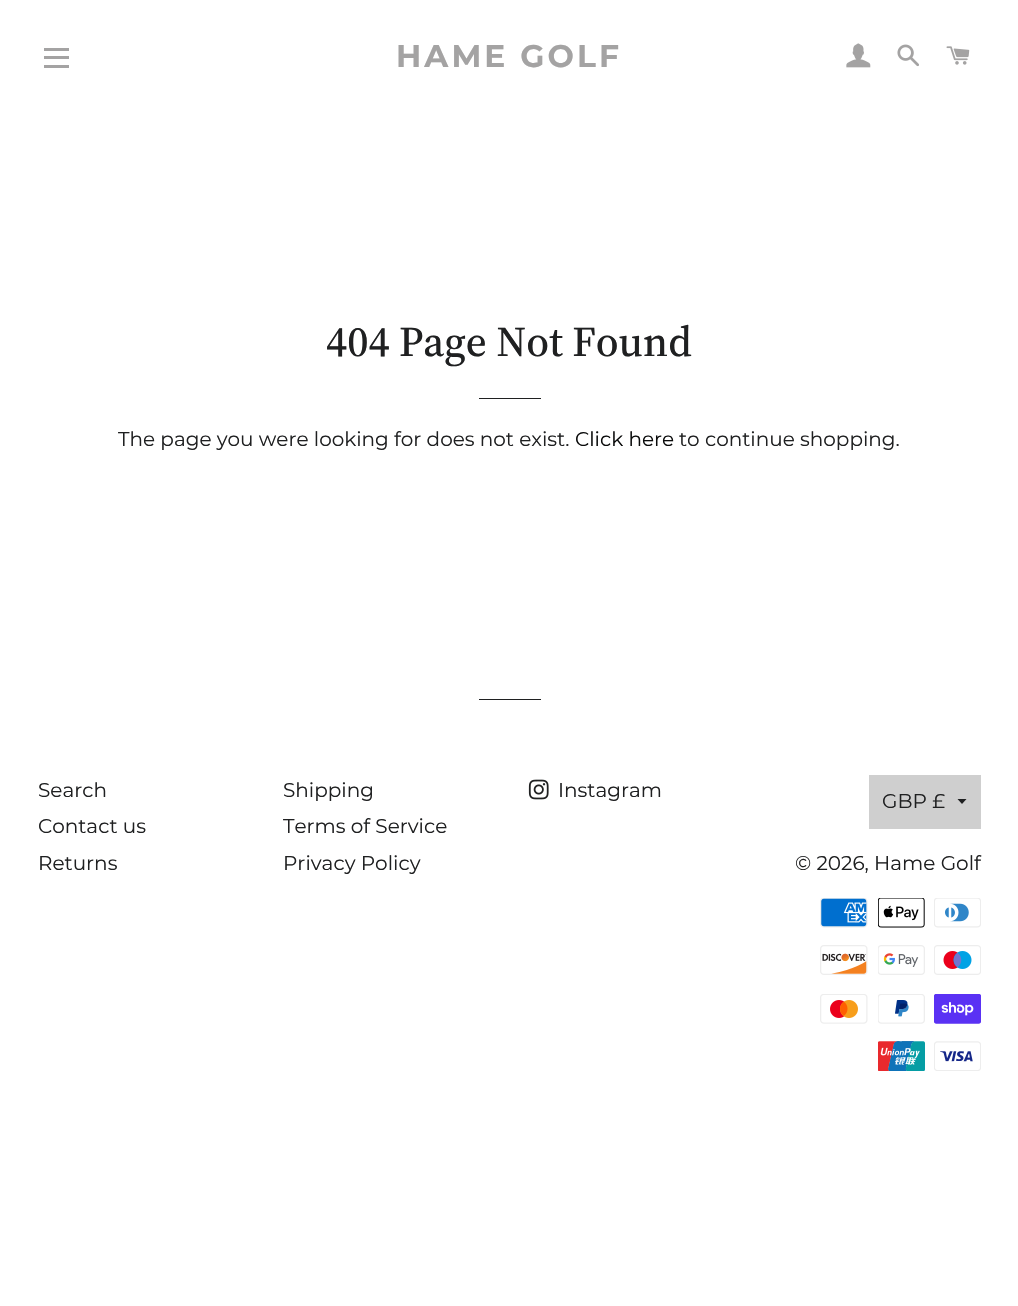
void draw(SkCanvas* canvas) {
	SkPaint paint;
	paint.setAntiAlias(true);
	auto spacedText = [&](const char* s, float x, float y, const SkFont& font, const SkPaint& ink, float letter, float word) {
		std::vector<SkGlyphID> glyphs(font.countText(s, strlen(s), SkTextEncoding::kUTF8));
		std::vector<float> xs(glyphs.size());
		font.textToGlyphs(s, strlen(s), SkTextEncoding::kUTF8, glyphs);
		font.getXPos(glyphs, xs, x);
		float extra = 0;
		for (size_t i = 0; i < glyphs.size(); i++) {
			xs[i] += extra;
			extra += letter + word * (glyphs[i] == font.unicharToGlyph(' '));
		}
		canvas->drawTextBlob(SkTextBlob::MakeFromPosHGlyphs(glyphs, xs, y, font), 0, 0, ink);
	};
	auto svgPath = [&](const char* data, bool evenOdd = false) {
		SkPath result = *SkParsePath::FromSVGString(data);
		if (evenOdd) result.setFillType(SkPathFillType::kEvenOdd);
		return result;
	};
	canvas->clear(0xffffffff);
	paint.setColor(0xffa4a3a3);
	canvas->drawRect(SkRect::MakeXYWH(44, 48, 25, 3), paint);
	canvas->drawRect(SkRect::MakeXYWH(44, 56, 25, 3), paint);
	canvas->drawRect(SkRect::MakeXYWH(44, 65, 25, 3), paint);
	SkFont f1(fontMgr->matchFamilyStyle("Montserrat", SkFontStyle::Bold()), 31.25);
	f1.setSubpixel(true);
	spacedText("HAME GOLF", 396, 67, f1, paint, 3.1, 0);
	canvas->drawImageRect(SkImages::DeferredFromEncodedData(SkData::MakeFromFileName("img1.png")), SkRect::MakeXYWH(846, 43, 25, 25), SkSamplingOptions());
	canvas->drawImageRect(SkImages::DeferredFromEncodedData(SkData::MakeFromFileName("img2.png")), SkRect::MakeXYWH(897, 44, 22, 23), SkSamplingOptions());
	canvas->drawImageRect(SkImages::DeferredFromEncodedData(SkData::MakeFromFileName("img3.png")), SkRect::MakeXYWH(946, 46, 24, 19), SkSamplingOptions());
	SkFont f2(fontMgr->matchFamilyStyle("Source Serif 4", SkFontStyle(500, SkFontStyle::kNormal_Width, SkFontStyle::kUpright_Slant)), 42.5);
	f2.setSubpixel(true);
	paint.setColor(0xff1f2021);
	canvas->drawString("404 Page Not Found", 326, 356, f2, paint);
	canvas->drawRect(SkRect::MakeXYWH(479, 398, 62, 1), paint);
	SkFont f3(fontMgr->matchFamilyStyle("Montserrat", SkFontStyle::Normal()), 20);
	f3.setSubpixel(true);
	canvas->drawString("The page you were looking for does not exist.", 118, 446, f3, paint);
	paint.setColor(0xff0a0b0b);
	canvas->drawString("Click here", 575, 446, f3, paint);
	paint.setColor(0xff1f2021);
	canvas->drawString("to continue shopping.", 679, 446, f3, paint);
	canvas->drawRect(SkRect::MakeXYWH(479, 699, 62, 1), paint);
	canvas->drawString("Search", 38, 797, f3, paint);
	canvas->drawString("Contact us", 38, 833, f3, paint);
	canvas->drawString("Returns", 38, 870, f3, paint);
	canvas->drawString("Shipping", 283, 797, f3, paint);
	canvas->drawString("Terms of Service", 283, 833, f3, paint);
	canvas->drawString("Privacy Policy", 283, 870, f3, paint);
	canvas->drawImageRect(SkImages::DeferredFromEncodedData(SkData::MakeFromFileName("img4.png")), SkRect::MakeXYWH(528, 779, 21, 21), SkSamplingOptions());
	canvas->drawString("Instagram", 558, 797, f3, paint);
	paint.setColor(0xffcfcfcf);
	canvas->drawRect(SkRect::MakeXYWH(869, 775, 112, 54), paint);
	paint.setColor(0xff1f2021);
	canvas->drawPath(svgPath("M957.5 799L962 804L966.5 799Z"), paint);
	canvas->drawString("GBP £", 882, 808, f3, paint);
	canvas->drawString("© 2026, Hame Golf", 795, 870, f3, paint);
	canvas->drawImageRect(SkImages::DeferredFromEncodedData(SkData::MakeFromFileName("img5.png")), SkRect::MakeXYWH(820, 898, 48, 30), SkSamplingOptions());
	canvas->drawImageRect(SkImages::DeferredFromEncodedData(SkData::MakeFromFileName("img6.png")), SkRect::MakeXYWH(878, 898, 47, 30), SkSamplingOptions());
	canvas->drawImageRect(SkImages::DeferredFromEncodedData(SkData::MakeFromFileName("img7.png")), SkRect::MakeXYWH(934, 898, 47, 30), SkSamplingOptions());
	canvas->drawImageRect(SkImages::DeferredFromEncodedData(SkData::MakeFromFileName("img8.png")), SkRect::MakeXYWH(820, 945, 48, 30), SkSamplingOptions());
	canvas->drawImageRect(SkImages::DeferredFromEncodedData(SkData::MakeFromFileName("img9.png")), SkRect::MakeXYWH(878, 945, 47, 30), SkSamplingOptions());
	canvas->drawImageRect(SkImages::DeferredFromEncodedData(SkData::MakeFromFileName("img10.png")), SkRect::MakeXYWH(934, 945, 47, 30), SkSamplingOptions());
	canvas->drawImageRect(SkImages::DeferredFromEncodedData(SkData::MakeFromFileName("img11.png")), SkRect::MakeXYWH(820, 994, 48, 30), SkSamplingOptions());
	canvas->drawImageRect(SkImages::DeferredFromEncodedData(SkData::MakeFromFileName("img12.png")), SkRect::MakeXYWH(878, 994, 47, 30), SkSamplingOptions());
	canvas->drawImageRect(SkImages::DeferredFromEncodedData(SkData::MakeFromFileName("img13.png")), SkRect::MakeXYWH(934, 994, 47, 30), SkSamplingOptions());
	canvas->drawImageRect(SkImages::DeferredFromEncodedData(SkData::MakeFromFileName("img14.png")), SkRect::MakeXYWH(878, 1041, 47, 30), SkSamplingOptions());
	canvas->drawImageRect(SkImages::DeferredFromEncodedData(SkData::MakeFromFileName("img15.png")), SkRect::MakeXYWH(934, 1041, 47, 30), SkSamplingOptions());
}
